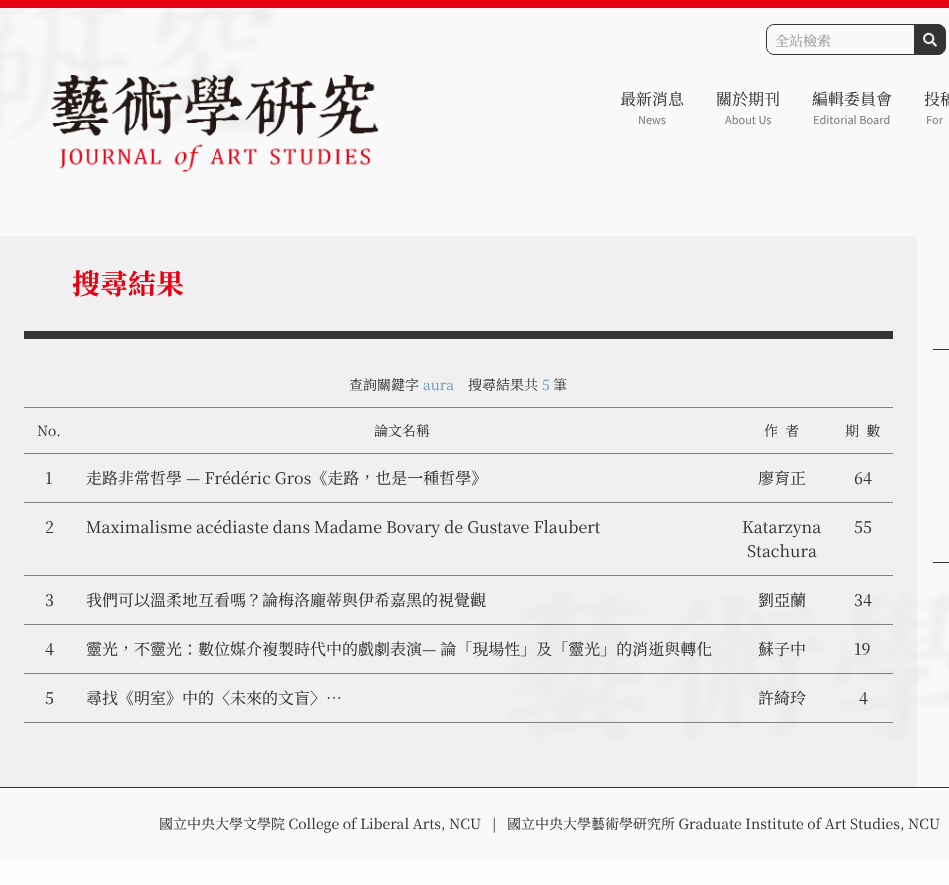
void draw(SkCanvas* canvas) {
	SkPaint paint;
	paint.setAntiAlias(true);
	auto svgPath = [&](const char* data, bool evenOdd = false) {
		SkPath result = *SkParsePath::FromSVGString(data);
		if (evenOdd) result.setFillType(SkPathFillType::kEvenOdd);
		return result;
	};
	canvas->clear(0xfffcfcfc);
	paint.setColor(0xfff9f9f9);
	canvas->drawRect(SkRect::MakeXYWH(0, 8, 949, 851), paint);
	paint.setColor(0xfff0f0f0);
	canvas->drawRect(SkRect::MakeXYWH(0, 236, 917, 551), paint);
	canvas->drawImageRect(SkImages::DeferredFromEncodedData(SkData::MakeFromFileName("img1.png")), SkRect::MakeXYWH(0, 8, 284, 132), SkSamplingOptions());
	canvas->drawImageRect(SkImages::DeferredFromEncodedData(SkData::MakeFromFileName("img2.png")), SkRect::MakeXYWH(507, 590, 442, 152), SkSamplingOptions());
	paint.setColor(0xffe60012);
	canvas->drawRect(SkRect::MakeXYWH(0, 0, 949, 8), paint);
	canvas->drawImageRect(SkImages::DeferredFromEncodedData(SkData::MakeFromFileName("img3.png")), SkRect::MakeXYWH(51, 74, 328, 98), SkSamplingOptions());
	paint.setStroke(true);
	paint.setStrokeWidth(1);
	paint.setColor(0xff333333);
	canvas->drawPath(svgPath("M774 24.5H914.5V54.5H774C770 54.5 766.5 51 766.5 47V32C766.5 28 770 24.5 774 24.5Z"), paint);
	SkFont f1(fontMgr->matchFamilyStyle("Noto Serif TC", SkFontStyle::Normal()), 14);
	f1.setSubpixel(true);
	paint.setStroke(false);
	paint.setColor(0xff999999);
	canvas->drawString("全站檢索", 775, 46, f1, paint);
	paint.setColor(0xff333333);
	canvas->drawPath(svgPath("M914.5 24.5H938C942 24.5 945.5 28 945.5 32V47C945.5 51 942 54.5 938 54.5H914.5Z"), paint);
	paint.setStroke(true);
	canvas->drawPath(svgPath("M914.5 24.5H938C942 24.5 945.5 28 945.5 32V47C945.5 51 942 54.5 938 54.5H914.5Z"), paint);
	canvas->drawImageRect(SkImages::DeferredFromEncodedData(SkData::MakeFromFileName("img4.png")), SkRect::MakeXYWH(923, 32, 14, 15), SkSamplingOptions());
	SkFont f2(fontMgr->matchFamilyStyle("Noto Serif TC", SkFontStyle::Normal()), 16);
	f2.setSubpixel(true);
	paint.setStroke(false);
	canvas->drawString("最新消息", 620, 105, f2, paint);
	SkFont f3(fontMgr->matchFamilyStyle("Noto Sans TC", SkFontStyle::Normal()), 11);
	f3.setSubpixel(true);
	paint.setColor(0xff828282);
	canvas->drawString("News", 638, 124, f3, paint);
	paint.setColor(0xff333333);
	canvas->drawString("關於期刊", 716, 105, f2, paint);
	paint.setColor(0xff828282);
	canvas->drawString("About Us", 725, 124, f3, paint);
	paint.setColor(0xff333333);
	canvas->drawString("編輯委員會", 812, 105, f2, paint);
	paint.setColor(0xff828282);
	canvas->drawString("Editorial Board", 813, 124, f3, paint);
	paint.setColor(0xff333333);
	canvas->drawString("投稿", 924, 105, f2, paint);
	paint.setColor(0xff828282);
	canvas->drawString("For", 926, 124, f3, paint);
	SkFont f4(fontMgr->matchFamilyStyle("Noto Serif TC", SkFontStyle::Bold()), 28);
	f4.setSubpixel(true);
	paint.setColor(0xffe60012);
	canvas->drawString("搜尋結果", 72, 294, f4, paint);
	paint.setColor(0xff333333);
	canvas->drawRect(SkRect::MakeXYWH(24, 331, 869, 8), paint);
	paint.setColor(0xff808080);
	canvas->drawRect(SkRect::MakeXYWH(24, 407, 869, 1), paint);
	SkFont f5(fontMgr->matchFamilyStyle("Noto Serif TC", SkFontStyle(300, SkFontStyle::kNormal_Width, SkFontStyle::kUpright_Slant)), 14);
	f5.setSubpixel(true);
	paint.setColor(0xff212529);
	canvas->drawString("查詢關鍵字", 349, 390, f5, paint);
	paint.setColor(0xff5a8fc0);
	canvas->drawString("aura", 423, 390, f5, paint);
	paint.setColor(0xff212529);
	canvas->drawString("搜尋結果共", 468, 390, f5, paint);
	paint.setColor(0xff5a8fc0);
	canvas->drawString("5", 542, 390, f5, paint);
	paint.setColor(0xff212529);
	canvas->drawString("筆", 553, 390, f5, paint);
	canvas->drawString("No.", 37, 436, f5, paint);
	canvas->drawString("論文名稱", 374, 436, f5, paint);
	canvas->drawString("作  者", 764, 436, f5, paint);
	paint.setColor(0xff808080);
	canvas->drawRect(SkRect::MakeXYWH(24, 453, 869, 1), paint);
	paint.setColor(0xff212529);
	canvas->drawString("期  數", 845, 436, f5, paint);
	paint.setColor(0xff808080);
	canvas->drawRect(SkRect::MakeXYWH(24, 502, 869, 1), paint);
	paint.setColor(0xff333333);
	canvas->drawString("1", 45, 484, f2, paint);
	canvas->drawString("走路非常哲學 — Frédéric Gros《走路，也是一種哲學》", 86, 484, f2, paint);
	canvas->drawString("廖育正", 758, 484, f2, paint);
	canvas->drawString("64", 854, 484, f2, paint);
	paint.setColor(0xff808080);
	canvas->drawRect(SkRect::MakeXYWH(24, 575, 869, 1), paint);
	paint.setColor(0xff333333);
	canvas->drawString("2", 45, 533, f2, paint);
	canvas->drawString("Maximalisme acédiaste dans Madame Bovary de Gustave Flaubert", 86, 533, f2, paint);
	canvas->drawString("Katarzyna", 742, 533, f2, paint);
	canvas->drawString("Stachura", 747, 557, f2, paint);
	canvas->drawString("55", 854, 533, f2, paint);
	paint.setColor(0xff808080);
	canvas->drawRect(SkRect::MakeXYWH(24, 624, 869, 1), paint);
	paint.setColor(0xff333333);
	canvas->drawString("3", 45, 606, f2, paint);
	canvas->drawString("我們可以溫柔地互看嗎？論梅洛龐蒂與伊希嘉黑的視覺觀", 86, 606, f2, paint);
	canvas->drawString("劉亞蘭", 758, 606, f2, paint);
	canvas->drawString("34", 854, 606, f2, paint);
	paint.setColor(0xff808080);
	canvas->drawRect(SkRect::MakeXYWH(24, 673, 869, 1), paint);
	paint.setColor(0xff333333);
	canvas->drawString("4", 45, 655, f2, paint);
	canvas->drawString("靈光，不靈光：數位媒介複製時代中的戲劇表演— 論「現場性」及「靈光」的消逝與轉化", 86, 655, f2, paint);
	canvas->drawString("蘇子中", 758, 655, f2, paint);
	canvas->drawString("19", 854, 655, f2, paint);
	paint.setColor(0xff808080);
	canvas->drawRect(SkRect::MakeXYWH(24, 722, 869, 1), paint);
	paint.setColor(0xff333333);
	canvas->drawString("5", 45, 704, f2, paint);
	canvas->drawString("尋找《明室》中的〈未來的文盲〉…", 86, 704, f2, paint);
	canvas->drawString("許綺玲", 758, 704, f2, paint);
	canvas->drawString("4", 859, 704, f2, paint);
	canvas->drawRect(SkRect::MakeXYWH(933, 349, 16, 1), paint);
	canvas->drawRect(SkRect::MakeXYWH(933, 562, 16, 1), paint);
	canvas->drawRect(SkRect::MakeXYWH(0, 787, 949, 1), paint);
	canvas->drawString("國立中央大學文學院 College of Liberal Arts, NCU", 159, 829, f1, paint);
	canvas->drawString("|", 492, 829, f1, paint);
	canvas->drawString("國立中央大學藝術學研究所 Graduate Institute of Art Studies, NCU", 507, 829, f1, paint);
}
